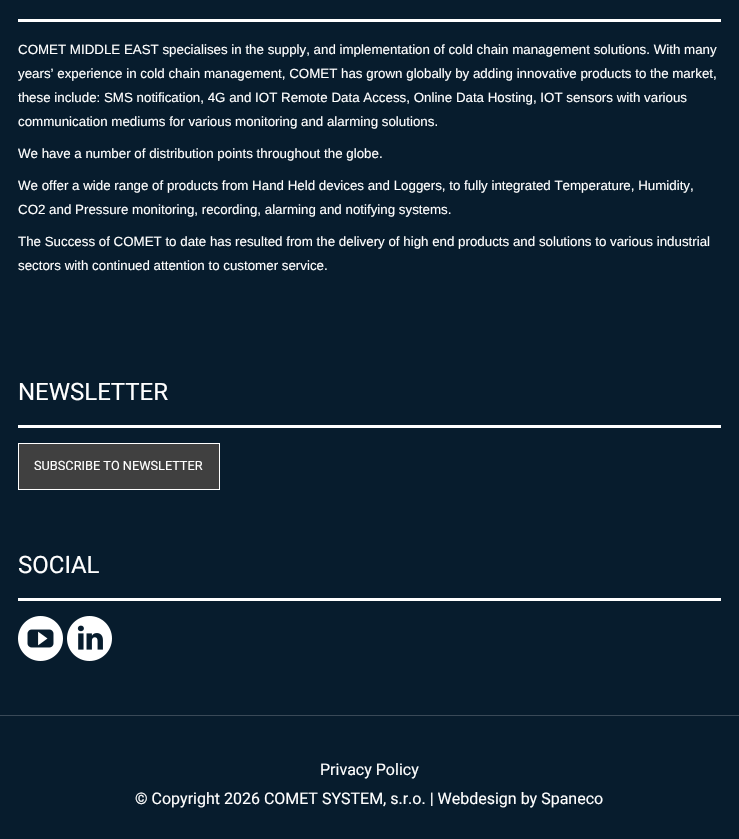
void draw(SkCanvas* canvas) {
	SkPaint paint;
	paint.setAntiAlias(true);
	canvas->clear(0xff071c2d);
	paint.setColor(0xffffffff);
	canvas->drawRect(SkRect::MakeXYWH(18, 19, 703, 3), paint);
	SkFont f1(fontMgr->matchFamilyStyle("Liberation Sans", SkFontStyle::Normal()), 13.33);
	f1.setSubpixel(true);
	canvas->drawString("COMET MIDDLE EAST specialises in the supply, and implementation of cold chain management solutions. With many", 18, 54, f1, paint);
	canvas->drawString("years’ experience in cold chain management, COMET has grown globally by adding innovative products to the market,", 18, 78, f1, paint);
	canvas->drawString("these include: SMS notification, 4G and IOT Remote Data Access, Online Data Hosting, IOT sensors with various", 18, 102, f1, paint);
	canvas->drawString("communication mediums for various monitoring and alarming solutions.", 18, 126, f1, paint);
	canvas->drawString("We have a number of distribution points throughout the globe.", 18, 158, f1, paint);
	canvas->drawString("We offer a wide range of products from Hand Held devices and Loggers, to fully integrated Temperature, Humidity,", 18, 190, f1, paint);
	canvas->drawString("CO2 and Pressure monitoring, recording, alarming and notifying systems.", 18, 214, f1, paint);
	canvas->drawString("The Success of COMET to date has resulted from the delivery of high end products and solutions to various industrial", 18, 246, f1, paint);
	canvas->drawString("sectors with continued attention to customer service.", 18, 270, f1, paint);
	canvas->drawRect(SkRect::MakeXYWH(18, 425, 703, 3), paint);
	SkFont f2(fontMgr->matchFamilyStyle("Roboto", SkFontStyle::Normal()), 24);
	f2.setSubpixel(true);
	canvas->drawString("NEWSLETTER", 18, 400, f2, paint);
	paint.setColor(0xff404040);
	canvas->drawRect(SkRect::MakeXYWH(18.5, 443.5, 201, 46), paint);
	paint.setStroke(true);
	paint.setStrokeWidth(1);
	paint.setColor(0xffffffff);
	canvas->drawRect(SkRect::MakeXYWH(18.5, 443.5, 201, 46), paint);
	SkFont f3(fontMgr->matchFamilyStyle("Roboto", SkFontStyle::Normal()), 12.75);
	f3.setSubpixel(true);
	paint.setStroke(false);
	canvas->drawString("SUBSCRIBE TO NEWSLETTER", 34, 470, f3, paint);
	canvas->drawRect(SkRect::MakeXYWH(18, 598, 703, 3), paint);
	canvas->drawString("SOCIAL", 18, 573, f2, paint);
	canvas->drawImageRect(SkImages::DeferredFromEncodedData(SkData::MakeFromFileName("img1.png")), SkRect::MakeXYWH(18, 616, 45, 45), SkSamplingOptions());
	canvas->drawImageRect(SkImages::DeferredFromEncodedData(SkData::MakeFromFileName("img2.png")), SkRect::MakeXYWH(67, 616, 45, 45), SkSamplingOptions());
	paint.setColor(0xff394957);
	canvas->drawRect(SkRect::MakeXYWH(0, 715, 739, 1), paint);
	SkFont f4(fontMgr->matchFamilyStyle("Roboto", SkFontStyle::Normal()), 16);
	f4.setSubpixel(true);
	paint.setColor(0xffffffff);
	canvas->drawString("Privacy Policy", 320, 775, f4, paint);
	canvas->drawString("© Copyright 2026 COMET SYSTEM, s.r.o. | Webdesign by Spaneco", 135, 804, f4, paint);
}
